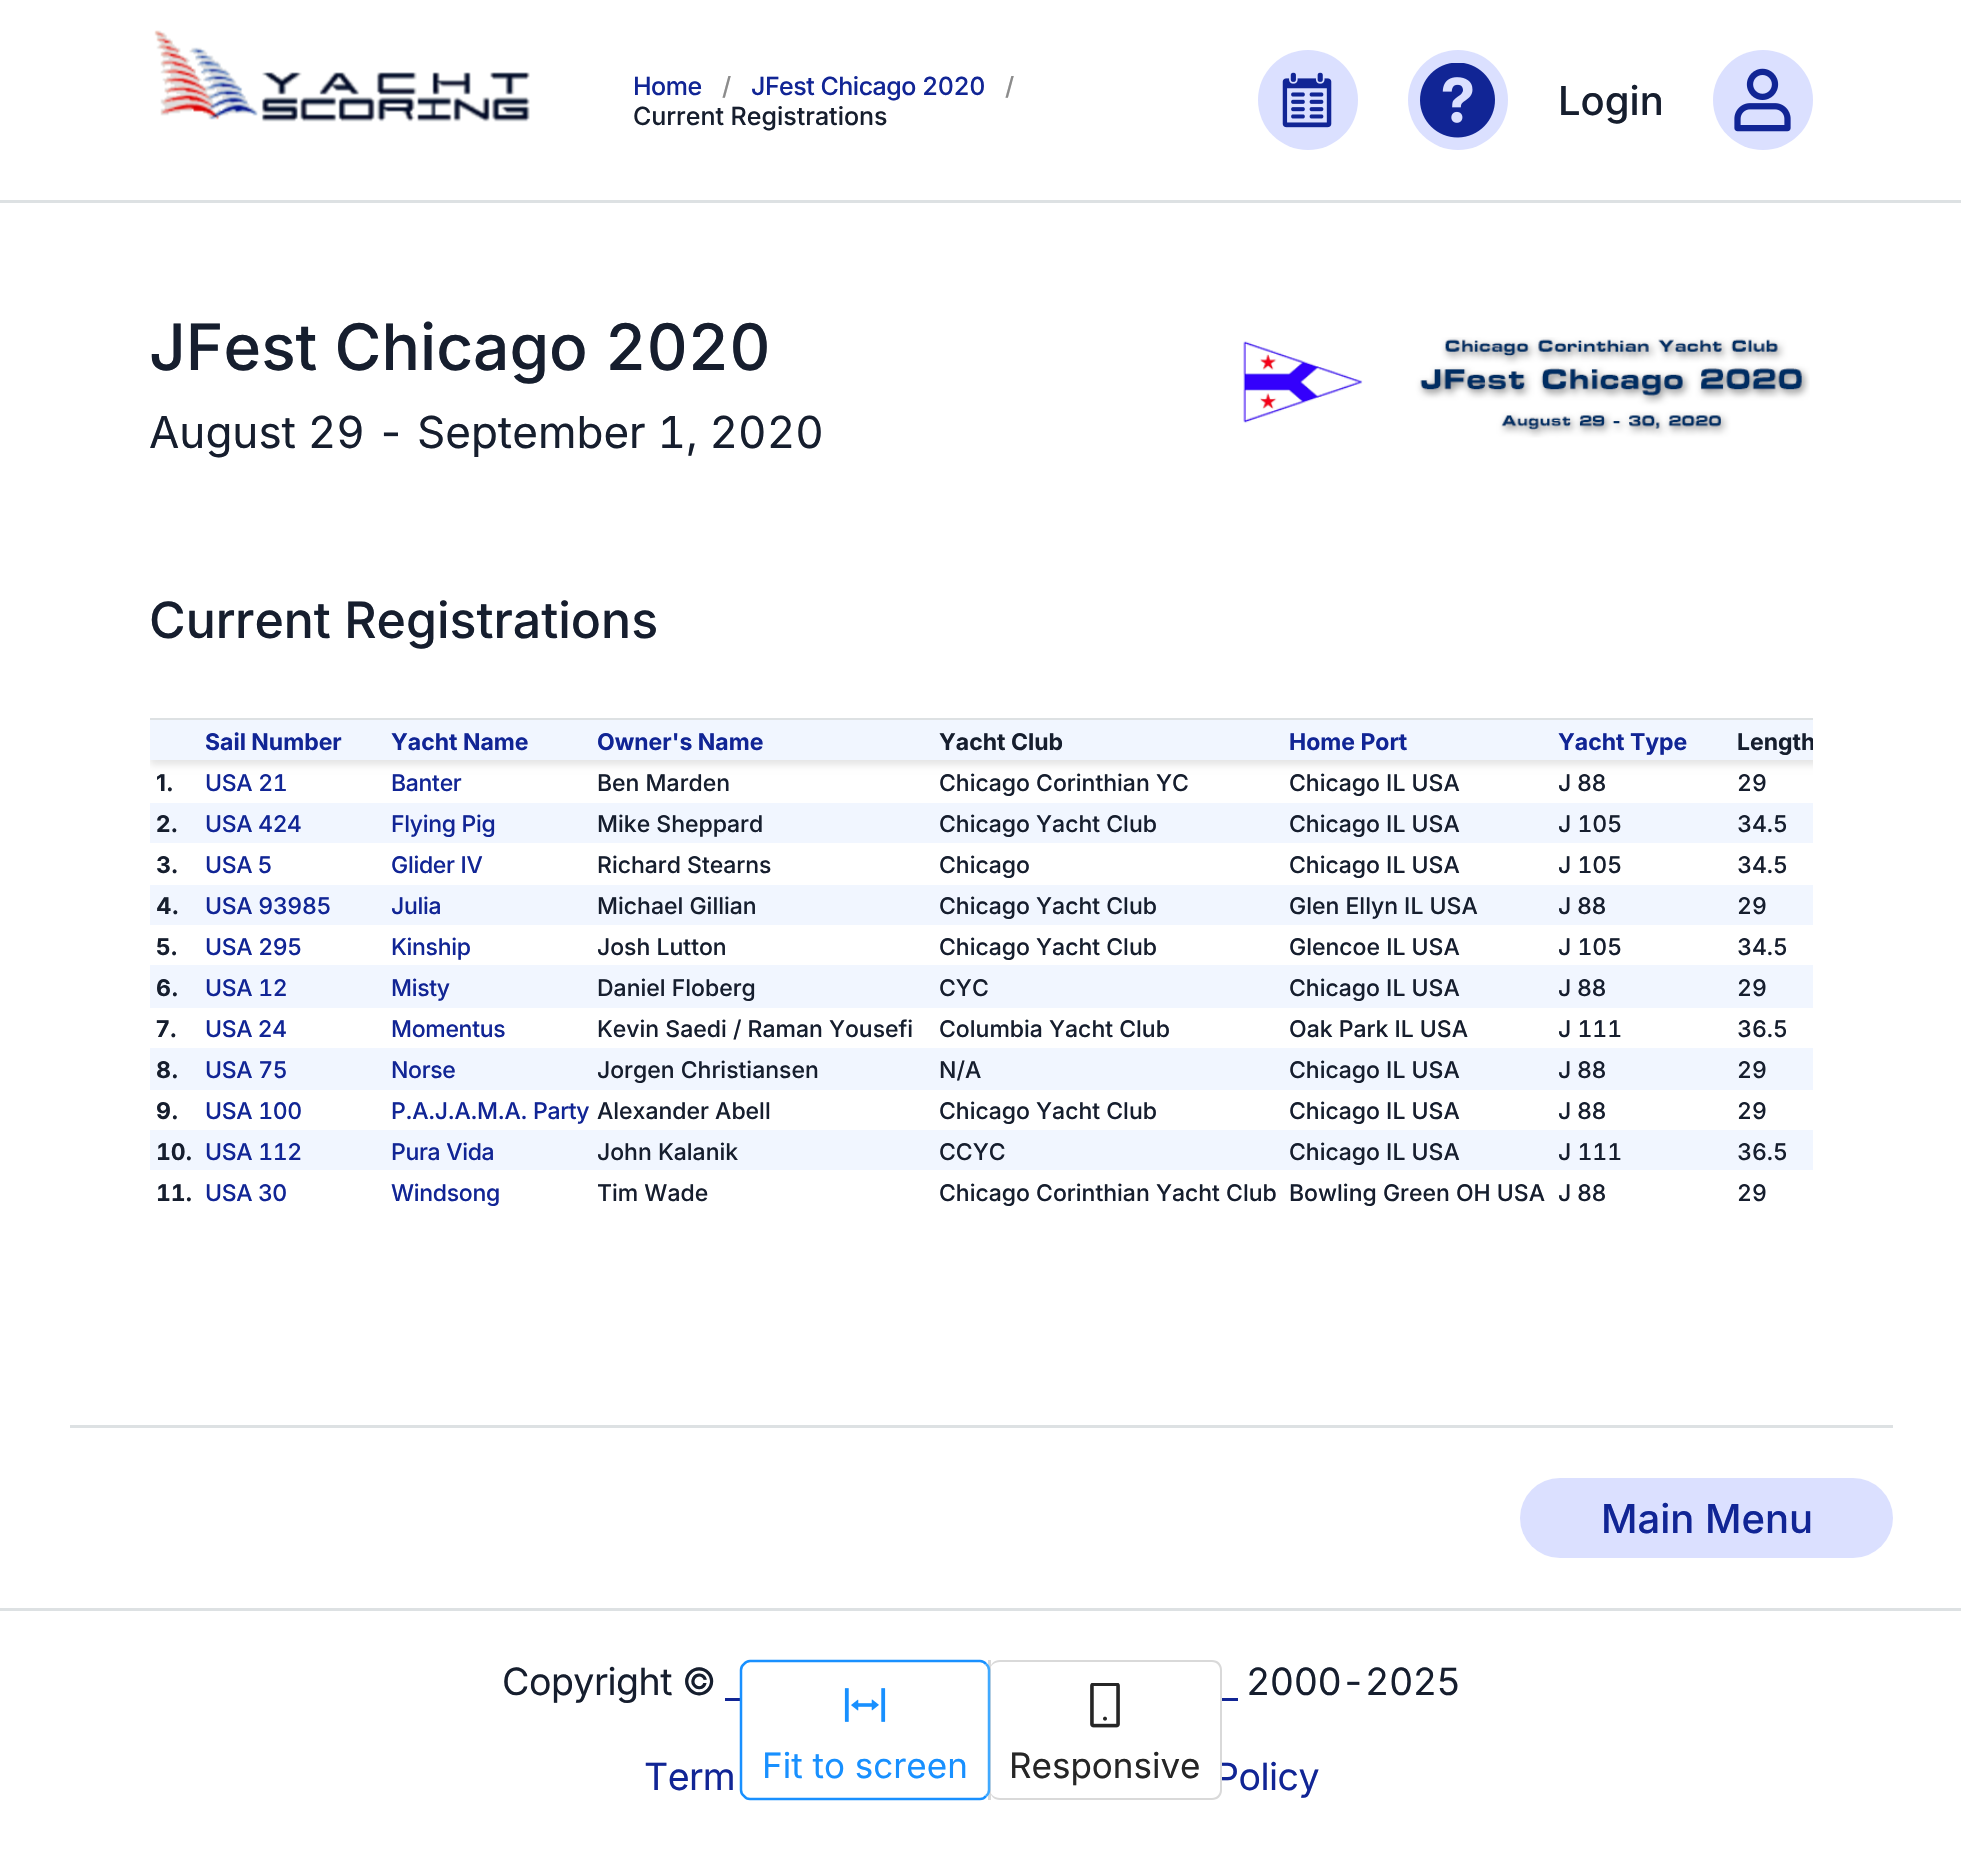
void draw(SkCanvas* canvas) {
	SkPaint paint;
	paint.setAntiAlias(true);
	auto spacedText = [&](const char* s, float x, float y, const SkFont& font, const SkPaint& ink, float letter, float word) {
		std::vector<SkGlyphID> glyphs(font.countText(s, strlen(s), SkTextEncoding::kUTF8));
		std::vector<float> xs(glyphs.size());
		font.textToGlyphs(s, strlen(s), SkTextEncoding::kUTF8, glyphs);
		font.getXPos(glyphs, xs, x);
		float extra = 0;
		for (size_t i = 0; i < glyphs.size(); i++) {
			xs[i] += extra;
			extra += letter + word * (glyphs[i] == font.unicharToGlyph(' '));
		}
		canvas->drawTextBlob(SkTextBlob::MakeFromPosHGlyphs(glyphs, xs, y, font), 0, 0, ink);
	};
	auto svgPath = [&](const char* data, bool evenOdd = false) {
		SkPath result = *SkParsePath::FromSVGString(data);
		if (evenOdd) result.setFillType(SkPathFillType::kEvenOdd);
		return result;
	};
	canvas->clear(0xffffffff);
	paint.setColor(0xffdde1e3);
	canvas->drawRect(SkRect::MakeXYWH(0, 200, 1961, 3), paint);
	canvas->drawImageRect(SkImages::DeferredFromEncodedData(SkData::MakeFromFileName("img1.png")), SkRect::MakeXYWH(154, 30, 376, 92), SkSamplingOptions());
	SkFont f1(fontMgr->matchFamilyStyle("Inter", SkFontStyle(500, SkFontStyle::kNormal_Width, SkFontStyle::kUpright_Slant)), 25);
	f1.setSubpixel(true);
	paint.setColor(0xff112595);
	spacedText("Home", 633, 95, f1, paint, -0.5, 0);
	paint.setColor(0xff8c8c8c);
	canvas->drawString("/", 722, 95, f1, paint);
	SkFont f2(fontMgr->matchFamilyStyle("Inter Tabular", SkFontStyle(500, SkFontStyle::kNormal_Width, SkFontStyle::kUpright_Slant)), 25);
	f2.setSubpixel(true);
	paint.setColor(0xff112595);
	spacedText("JFest Chicago 2020", 751, 95, f2, paint, -0.5, 0);
	paint.setColor(0xff8c8c8c);
	canvas->drawString("/", 1005, 95, f1, paint);
	paint.setColor(0xff161e2e);
	canvas->drawString("Current Registrations", 633, 125, f1, paint);
	paint.setColor(0xffdbe0ff);
	canvas->drawCircle(1308, 100, 50, paint);
	canvas->drawImageRect(SkImages::DeferredFromEncodedData(SkData::MakeFromFileName("img2.png")), SkRect::MakeXYWH(1282, 72, 50, 56), SkSamplingOptions());
	canvas->drawCircle(1458, 100, 50, paint);
	canvas->drawImageRect(SkImages::DeferredFromEncodedData(SkData::MakeFromFileName("img3.png")), SkRect::MakeXYWH(1420, 63, 75, 75), SkSamplingOptions());
	SkFont f3(fontMgr->matchFamilyStyle("Inter", SkFontStyle(500, SkFontStyle::kNormal_Width, SkFontStyle::kUpright_Slant)), 40);
	f3.setSubpixel(true);
	paint.setColor(0xff161e2e);
	canvas->drawString("Login", 1558, 115, f3, paint);
	paint.setColor(0xffdbe0ff);
	canvas->drawCircle(1763, 100, 50, paint);
	canvas->drawImageRect(SkImages::DeferredFromEncodedData(SkData::MakeFromFileName("img4.png")), SkRect::MakeXYWH(1734, 68, 57, 64), SkSamplingOptions());
	SkFont f4(fontMgr->matchFamilyStyle("Inter Tabular", SkFontStyle(500, SkFontStyle::kNormal_Width, SkFontStyle::kUpright_Slant)), 64);
	f4.setSubpixel(true);
	paint.setColor(0xff161e2e);
	canvas->drawString("JFest Chicago 2020", 149, 370, f4, paint);
	SkFont f5(fontMgr->matchFamilyStyle("Inter Tabular", SkFontStyle::Normal()), 44);
	f5.setSubpixel(true);
	canvas->drawString("August 29 - September 1, 2020", 149, 448, f5, paint);
	canvas->drawImageRect(SkImages::DeferredFromEncodedData(SkData::MakeFromFileName("img5.png")), SkRect::MakeXYWH(1243, 337, 567, 101), SkSamplingOptions());
	SkFont f6(fontMgr->matchFamilyStyle("Inter", SkFontStyle(500, SkFontStyle::kNormal_Width, SkFontStyle::kUpright_Slant)), 50);
	f6.setSubpixel(true);
	canvas->drawString("Current Registrations", 149, 638, f6, paint);
	paint.setColor(0xffdde1e3);
	canvas->drawRect(SkRect::MakeXYWH(150, 718, 1663, 2), paint);
	canvas->save();
	canvas->clipRect(SkRect::MakeXYWH(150, 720, 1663, 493));
	paint.setColor(0x1a000000);
	paint.setMaskFilter(SkMaskFilter::MakeBlur(kNormal_SkBlurStyle, 3.5));
	canvas->drawRect(SkRect::MakeXYWH(150, 723, 1673, 42), paint);
	paint.setMaskFilter(nullptr);
	canvas->restore();
	paint.setColor(0xfff1f6ff);
	canvas->drawRect(SkRect::MakeXYWH(150, 720, 1663, 40), paint);
	SkFont f7(fontMgr->matchFamilyStyle("Inter", SkFontStyle::Bold()), 23);
	f7.setSubpixel(true);
	paint.setColor(0xff112595);
	canvas->drawString("Sail Number", 205, 750, f7, paint);
	canvas->drawString("Yacht Name", 391, 750, f7, paint);
	canvas->drawString("Owner's Name", 597, 750, f7, paint);
	paint.setColor(0xff161e2e);
	canvas->drawString("Yacht Club", 939, 750, f7, paint);
	paint.setColor(0xff112595);
	canvas->drawString("Home Port", 1289, 750, f7, paint);
	canvas->drawString("Yacht Type", 1558, 750, f7, paint);
	canvas->save();
	canvas->clipRect(SkRect::MakeXYWH(1730, 720, 83, 40));
	paint.setColor(0xff161e2e);
	canvas->drawString("Length", 1737, 750, f7, paint);
	canvas->restore();
	canvas->drawString("1.", 156, 791, f7, paint);
	SkFont f8(fontMgr->matchFamilyStyle("Inter Tabular", SkFontStyle(500, SkFontStyle::kNormal_Width, SkFontStyle::kUpright_Slant)), 23);
	f8.setSubpixel(true);
	paint.setColor(0xff112595);
	spacedText("USA 21", 205, 791, f8, paint, -0.3, 0);
	SkFont f9(fontMgr->matchFamilyStyle("Inter", SkFontStyle(500, SkFontStyle::kNormal_Width, SkFontStyle::kUpright_Slant)), 23);
	f9.setSubpixel(true);
	spacedText("Banter", 391, 791, f9, paint, -0.3, 0);
	paint.setColor(0xff161e2e);
	canvas->drawString("Ben Marden", 597, 791, f9, paint);
	canvas->drawString("Chicago Corinthian YC", 939, 791, f9, paint);
	canvas->drawString("Chicago IL USA", 1289, 791, f9, paint);
	canvas->drawString("J 88", 1558, 791, f9, paint);
	canvas->drawString("29", 1737, 791, f8, paint);
	paint.setColor(0xfff1f6ff);
	canvas->drawRect(SkRect::MakeXYWH(150, 803, 1663, 40), paint);
	paint.setColor(0xff161e2e);
	canvas->drawString("2.", 156, 832, f7, paint);
	paint.setColor(0xff112595);
	spacedText("USA 424", 205, 832, f9, paint, -0.3, 0);
	spacedText("Flying Pig", 391, 832, f9, paint, -0.3, 0);
	paint.setColor(0xff161e2e);
	canvas->drawString("Mike Sheppard", 597, 832, f9, paint);
	canvas->drawString("Chicago Yacht Club", 939, 832, f9, paint);
	canvas->drawString("Chicago IL USA", 1289, 832, f9, paint);
	canvas->drawString("J 105", 1558, 832, f8, paint);
	canvas->drawString("34.5", 1737, 832, f8, paint);
	canvas->drawString("3.", 156, 873, f7, paint);
	paint.setColor(0xff112595);
	spacedText("USA 5", 205, 873, f9, paint, -0.3, 0);
	spacedText("Glider IV", 391, 873, f9, paint, -0.3, 0);
	paint.setColor(0xff161e2e);
	canvas->drawString("Richard Stearns", 597, 873, f9, paint);
	canvas->drawString("Chicago", 939, 873, f9, paint);
	canvas->drawString("Chicago IL USA", 1289, 873, f9, paint);
	canvas->drawString("J 105", 1558, 873, f8, paint);
	canvas->drawString("34.5", 1737, 873, f8, paint);
	paint.setColor(0xfff1f6ff);
	canvas->drawRect(SkRect::MakeXYWH(150, 885, 1663, 40), paint);
	paint.setColor(0xff161e2e);
	canvas->drawString("4.", 156, 914, f7, paint);
	paint.setColor(0xff112595);
	spacedText("USA 93985", 205, 914, f8, paint, -0.3, 0);
	spacedText("Julia", 391, 914, f9, paint, -0.3, 0);
	paint.setColor(0xff161e2e);
	canvas->drawString("Michael Gillian", 597, 914, f9, paint);
	canvas->drawString("Chicago Yacht Club", 939, 914, f9, paint);
	canvas->drawString("Glen Ellyn IL USA", 1289, 914, f9, paint);
	canvas->drawString("J 88", 1558, 914, f9, paint);
	canvas->drawString("29", 1737, 914, f8, paint);
	canvas->drawString("5.", 156, 955, f7, paint);
	paint.setColor(0xff112595);
	spacedText("USA 295", 205, 955, f8, paint, -0.3, 0);
	spacedText("Kinship", 391, 955, f9, paint, -0.3, 0);
	paint.setColor(0xff161e2e);
	canvas->drawString("Josh Lutton", 597, 955, f9, paint);
	canvas->drawString("Chicago Yacht Club", 939, 955, f9, paint);
	canvas->drawString("Glencoe IL USA", 1289, 955, f9, paint);
	canvas->drawString("J 105", 1558, 955, f8, paint);
	canvas->drawString("34.5", 1737, 955, f8, paint);
	paint.setColor(0xfff1f6ff);
	canvas->drawRect(SkRect::MakeXYWH(150, 965, 1663, 43), paint);
	paint.setColor(0xff161e2e);
	canvas->drawString("6.", 156, 996, f7, paint);
	paint.setColor(0xff112595);
	spacedText("USA 12", 205, 996, f8, paint, -0.3, 0);
	spacedText("Misty", 391, 996, f9, paint, -0.3, 0);
	paint.setColor(0xff161e2e);
	canvas->drawString("Daniel Floberg", 597, 996, f9, paint);
	canvas->drawString("CYC", 939, 996, f9, paint);
	canvas->drawString("Chicago IL USA", 1289, 996, f9, paint);
	canvas->drawString("J 88", 1558, 996, f9, paint);
	canvas->drawString("29", 1737, 996, f8, paint);
	canvas->drawString("7.", 156, 1037, f7, paint);
	paint.setColor(0xff112595);
	spacedText("USA 24", 205, 1037, f9, paint, -0.3, 0);
	spacedText("Momentus", 391, 1037, f9, paint, -0.3, 0);
	paint.setColor(0xff161e2e);
	canvas->drawString("Kevin Saedi / Raman Yousefi", 597, 1037, f9, paint);
	canvas->drawString("Columbia Yacht Club", 939, 1037, f9, paint);
	canvas->drawString("Oak Park IL USA", 1289, 1037, f9, paint);
	canvas->drawString("J 111", 1558, 1037, f8, paint);
	canvas->drawString("36.5", 1737, 1037, f8, paint);
	paint.setColor(0xfff1f6ff);
	canvas->drawRect(SkRect::MakeXYWH(150, 1048, 1663, 42), paint);
	paint.setColor(0xff161e2e);
	canvas->drawString("8.", 156, 1078, f7, paint);
	paint.setColor(0xff112595);
	spacedText("USA 75", 205, 1078, f8, paint, -0.3, 0);
	spacedText("Norse", 391, 1078, f9, paint, -0.3, 0);
	paint.setColor(0xff161e2e);
	canvas->drawString("Jorgen Christiansen", 597, 1078, f9, paint);
	canvas->drawString("N/A", 939, 1078, f9, paint);
	canvas->drawString("Chicago IL USA", 1289, 1078, f9, paint);
	canvas->drawString("J 88", 1558, 1078, f9, paint);
	canvas->drawString("29", 1737, 1078, f8, paint);
	canvas->drawString("9.", 156, 1119, f7, paint);
	paint.setColor(0xff112595);
	spacedText("USA 100", 205, 1119, f8, paint, -0.3, 0);
	spacedText("P.A.J.A.M.A. Party", 391, 1119, f9, paint, -0.3, 0);
	paint.setColor(0xff161e2e);
	canvas->drawString("Alexander Abell", 597, 1119, f9, paint);
	canvas->drawString("Chicago Yacht Club", 939, 1119, f9, paint);
	canvas->drawString("Chicago IL USA", 1289, 1119, f9, paint);
	canvas->drawString("J 88", 1558, 1119, f9, paint);
	canvas->drawString("29", 1737, 1119, f8, paint);
	paint.setColor(0xfff1f6ff);
	canvas->drawRect(SkRect::MakeXYWH(150, 1130, 1663, 40), paint);
	SkFont f10(fontMgr->matchFamilyStyle("Inter Tabular", SkFontStyle::Bold()), 23);
	f10.setSubpixel(true);
	paint.setColor(0xff161e2e);
	canvas->drawString("10", 156, 1160, f10, paint);
	canvas->drawString(".", 185, 1160, f7, paint);
	paint.setColor(0xff112595);
	spacedText("USA 112", 205, 1160, f8, paint, -0.3, 0);
	spacedText("Pura Vida", 391, 1160, f9, paint, -0.3, 0);
	paint.setColor(0xff161e2e);
	canvas->drawString("John Kalanik", 597, 1160, f9, paint);
	canvas->drawString("CCYC", 939, 1160, f9, paint);
	canvas->drawString("Chicago IL USA", 1289, 1160, f9, paint);
	canvas->drawString("J 111", 1558, 1160, f8, paint);
	canvas->drawString("36.5", 1737, 1160, f8, paint);
	canvas->drawString("11", 156, 1201, f10, paint);
	canvas->drawString(".", 185, 1201, f7, paint);
	paint.setColor(0xff112595);
	spacedText("USA 30", 205, 1201, f9, paint, -0.3, 0);
	spacedText("Windsong", 391, 1201, f9, paint, -0.3, 0);
	paint.setColor(0xff161e2e);
	canvas->drawString("Tim Wade", 597, 1201, f9, paint);
	canvas->drawString("Chicago Corinthian Yacht Club", 939, 1201, f9, paint);
	canvas->drawString("Bowling Green OH USA", 1289, 1201, f9, paint);
	canvas->drawString("J 88", 1558, 1201, f9, paint);
	canvas->drawString("29", 1737, 1201, f8, paint);
	paint.setColor(0xff112595);
	canvas->drawRect(SkRect::MakeXYWH(725, 1698, 513, 3), paint);
	SkFont f11(fontMgr->matchFamilyStyle("Inter", SkFontStyle::Normal()), 37.5);
	f11.setSubpixel(true);
	spacedText("Policy", 1215, 1790, f11, paint, -0.5, 0);
	paint.setColor(0xffffffff);
	canvas->drawPath(svgPath("M1000 1662H1212C1217 1662 1220 1666 1220 1670V1790C1220 1794 1217 1798 1212 1798H1000C994 1798 990 1794 990 1790V1670C990 1666 994 1662 1000 1662Z"), paint);
	paint.setColor(0xffd9d9d9);
	canvas->drawPath(svgPath("M1000 1660H1212C1218 1660 1222 1664 1222 1670V1790C1222 1796 1218 1800 1212 1800H1000C994 1800 990 1796 990 1790V1670C990 1664 994 1660 1000 1660ZM1000 1662H1212C1217 1662 1220 1666 1220 1670V1790C1220 1794 1217 1798 1212 1798H1000C994 1798 990 1794 990 1790V1670C990 1666 994 1662 1000 1662Z", true), paint);
	canvas->drawRect(SkRect::MakeXYWH(988, 1660, 3, 140), paint);
	paint.setColor(0xffffffff);
	canvas->drawRoundRect(SkRect::MakeXYWH(740, 1660, 250, 140), 10, 10, paint);
	paint.setStroke(true);
	paint.setStrokeWidth(2.5);
	paint.setColor(0xff40a9ff);
	canvas->drawPath(svgPath("M986 1664C988 1665.5 989 1667.5 989 1670V1790C989 1792.5 988 1794.5 986 1796"), paint);
	paint.setColor(0xff1890ff);
	canvas->drawPath(svgPath("M986 1796C984.5 1798 982.5 1799 980 1799H750C747.5 1799 745.5 1798 744 1796C742 1794.5 741 1792.5 741 1790V1670C741 1667.5 742 1665.5 744 1664C745.5 1662 747.5 1661 750 1661H980C982.5 1661 984.5 1662 986 1664"), paint);
	canvas->drawImageRect(SkImages::DeferredFromEncodedData(SkData::MakeFromFileName("img6.png")), SkRect::MakeXYWH(844, 1688, 42, 34), SkSamplingOptions());
	SkFont f12(fontMgr->matchFamilyStyle("Inter", SkFontStyle::Normal()), 35);
	f12.setSubpixel(true);
	paint.setStroke(false);
	canvas->drawString("Fit to screen", 762, 1778, f12, paint);
	canvas->drawImageRect(SkImages::DeferredFromEncodedData(SkData::MakeFromFileName("img7.png")), SkRect::MakeXYWH(1090, 1683, 30, 45), SkSamplingOptions());
	paint.setColor(0xff262626);
	canvas->drawString("Responsive", 1009, 1778, f12, paint);
	paint.setColor(0xffdde1e3);
	canvas->drawRect(SkRect::MakeXYWH(70, 1425, 1823, 3), paint);
	paint.setColor(0xffdbe0ff);
	canvas->drawRoundRect(SkRect::MakeXYWH(1520, 1478, 373, 80), 40, 40, paint);
	paint.setColor(0xff112595);
	canvas->drawString("Main Menu", 1601, 1533, f3, paint);
	paint.setColor(0xffdde1e3);
	canvas->drawRect(SkRect::MakeXYWH(0, 1608, 1961, 3), paint);
	paint.setColor(0xff161e2e);
	spacedText("Copyright ©", 502, 1695, f11, paint, -0.5, 0);
	SkFont f13(fontMgr->matchFamilyStyle("Inter Tabular", SkFontStyle::Normal()), 37.5);
	f13.setSubpixel(true);
	spacedText("2000-2025", 1246, 1695, f13, paint, -0.5, 0);
	paint.setColor(0xff112595);
	spacedText("Term", 644, 1790, f11, paint, -0.5, 0);
}
